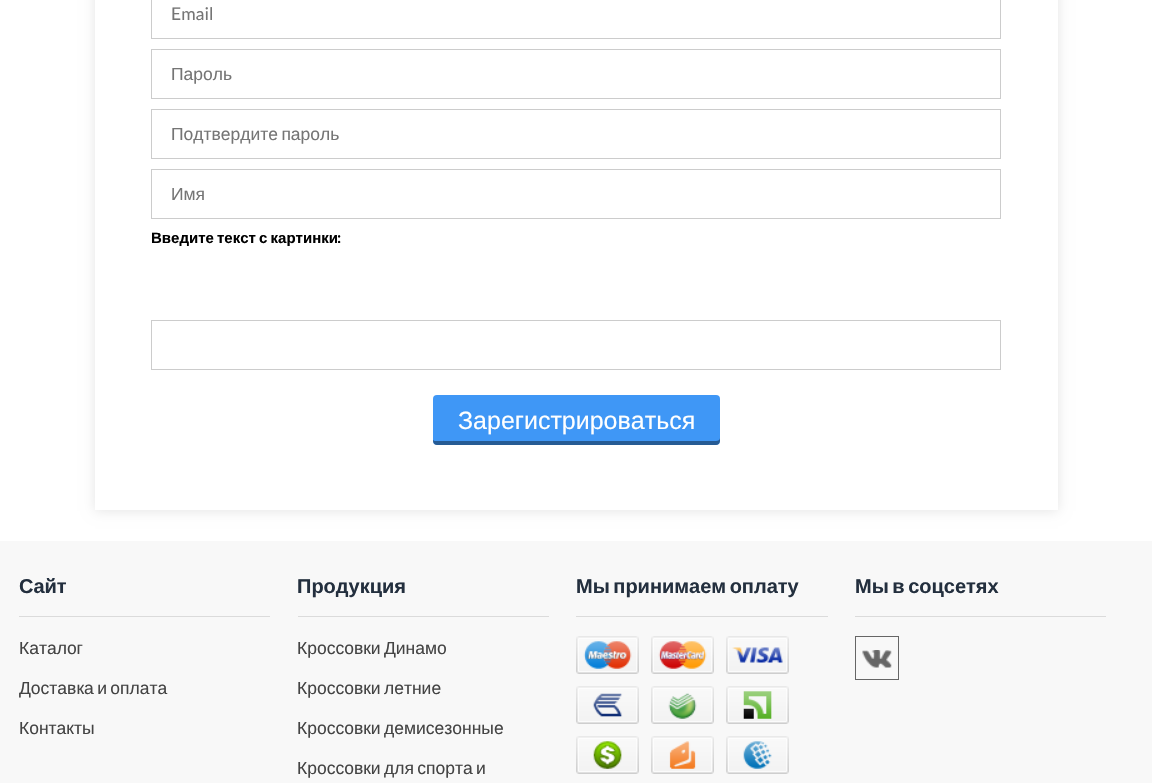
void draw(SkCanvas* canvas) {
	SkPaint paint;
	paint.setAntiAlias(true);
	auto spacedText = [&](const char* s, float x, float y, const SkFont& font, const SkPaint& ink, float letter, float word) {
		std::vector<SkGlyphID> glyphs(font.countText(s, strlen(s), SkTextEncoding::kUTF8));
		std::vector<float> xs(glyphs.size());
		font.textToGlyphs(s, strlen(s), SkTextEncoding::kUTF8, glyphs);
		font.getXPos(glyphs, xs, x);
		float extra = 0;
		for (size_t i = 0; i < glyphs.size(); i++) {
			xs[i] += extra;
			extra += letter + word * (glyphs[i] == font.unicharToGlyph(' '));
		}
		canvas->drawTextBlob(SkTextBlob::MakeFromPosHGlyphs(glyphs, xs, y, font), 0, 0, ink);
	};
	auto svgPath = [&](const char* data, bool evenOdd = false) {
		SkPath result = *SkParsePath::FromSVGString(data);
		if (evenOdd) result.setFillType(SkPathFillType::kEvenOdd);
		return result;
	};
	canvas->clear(0xffffffff);
	paint.setColor(0x1a000000);
	paint.setMaskFilter(SkMaskFilter::MakeBlur(kNormal_SkBlurStyle, 6));
	canvas->drawRect(SkRect::MakeXYWH(95, -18, 963, 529), paint);
	paint.setMaskFilter(nullptr);
	paint.setColor(0xffffffff);
	canvas->drawRect(SkRect::MakeXYWH(95, 0, 963, 510), paint);
	paint.setStroke(true);
	paint.setStrokeWidth(1);
	paint.setColor(0xffcccccc);
	canvas->drawRect(SkRect::MakeXYWH(151.5, -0.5, 849, 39), paint);
	SkFont f1(fontMgr->matchFamilyStyle("Lato", SkFontStyle::Normal()), 17.5);
	f1.setSubpixel(true);
	paint.setStroke(false);
	paint.setColor(0xff757575);
	canvas->drawString("Email", 171, 20, f1, paint);
	paint.setStroke(true);
	paint.setColor(0xffcccccc);
	canvas->drawRect(SkRect::MakeXYWH(151.5, 49.5, 849, 49), paint);
	SkFont f2(fontMgr->matchFamilyStyle("Liberation Sans", SkFontStyle::Normal()), 17.5);
	f2.setSubpixel(true);
	paint.setStroke(false);
	paint.setColor(0xff757575);
	canvas->drawString("Пароль", 171, 80, f2, paint);
	paint.setStroke(true);
	paint.setColor(0xffcccccc);
	canvas->drawRect(SkRect::MakeXYWH(151.5, 109.5, 849, 49), paint);
	paint.setStroke(false);
	paint.setColor(0xff757575);
	spacedText("Подтвердите пароль", 171, 140, f2, paint, 0, -1.5);
	paint.setStroke(true);
	paint.setColor(0xffcccccc);
	canvas->drawRect(SkRect::MakeXYWH(151.5, 169.5, 849, 49), paint);
	paint.setStroke(false);
	paint.setColor(0xff757575);
	canvas->drawString("Имя", 171, 200, f2, paint);
	SkFont f3(fontMgr->matchFamilyStyle("Liberation Sans", SkFontStyle::Bold()), 15);
	f3.setSubpixel(true);
	paint.setColor(0xff000000);
	spacedText("Введите текст с картинки", 151, 243, f3, paint, 0, -1);
	SkFont f4(fontMgr->matchFamilyStyle("Lato", SkFontStyle::Bold()), 15);
	f4.setSubpixel(true);
	canvas->drawString(":", 337, 243, f4, paint);
	paint.setStroke(true);
	paint.setColor(0xffcccccc);
	canvas->drawRect(SkRect::MakeXYWH(151.5, 320.5, 849, 49), paint);
	paint.setStroke(false);
	paint.setColor(0xff3f97f6);
	canvas->drawRoundRect(SkRect::MakeXYWH(433, 395, 287, 50), 4, 4, paint);
	paint.setColor(0x66000000);
	canvas->drawPath(svgPath("M433 440V441C433 443 435 445 437 445H716C718 445 720 443 720 441V438C720 440 718 441 716 441H436C435 441 434 441 433 440Z"), paint);
	SkFont f5(fontMgr->matchFamilyStyle("Liberation Sans", SkFontStyle::Normal()), 25);
	f5.setSubpixel(true);
	paint.setColor(0xffffffff);
	canvas->drawString("Зарегистрироваться", 458, 429, f5, paint);
	paint.setColor(0xfff8f8f8);
	canvas->drawRect(SkRect::MakeXYWH(0, 541, 1152, 242), paint);
	paint.setColor(0xffdbdbdb);
	canvas->drawRect(SkRect::MakeXYWH(19, 616, 251, 1), paint);
	SkFont f6(fontMgr->matchFamilyStyle("Liberation Sans", SkFontStyle::Bold()), 20);
	f6.setSubpixel(true);
	paint.setColor(0xff232f3e);
	canvas->drawString("Сайт", 19, 593, f6, paint);
	paint.setColor(0xff444444);
	canvas->drawString("Каталог", 19, 654, f2, paint);
	spacedText("Доставка и оплата", 19, 694, f2, paint, 0, -1.5);
	canvas->drawString("Контакты", 19, 734, f2, paint);
	paint.setColor(0xffdbdbdb);
	canvas->drawRect(SkRect::MakeXYWH(298, 616, 251, 1), paint);
	paint.setColor(0xff232f3e);
	canvas->drawString("Продукция", 297, 593, f6, paint);
	paint.setColor(0xff444444);
	spacedText("Кроссовки Динамо", 297, 654, f2, paint, 0, -1.5);
	spacedText("Кроссовки летние", 297, 694, f2, paint, 0, -1.5);
	spacedText("Кроссовки демисезонные", 297, 734, f2, paint, 0, -1.5);
	spacedText("Кроссовки для спорта и", 297, 774, f2, paint, 0, -1.5);
	paint.setColor(0xffdbdbdb);
	canvas->drawRect(SkRect::MakeXYWH(576, 616, 252, 1), paint);
	paint.setColor(0xff232f3e);
	spacedText("Мы принимаем оплату", 576, 593, f6, paint, 0, -2);
	canvas->drawImageRect(SkImages::DeferredFromEncodedData(SkData::MakeFromFileName("img1.png")), SkRect::MakeXYWH(576, 636, 213, 138), SkSamplingOptions());
	paint.setColor(0xffdbdbdb);
	canvas->drawRect(SkRect::MakeXYWH(855, 616, 251, 1), paint);
	paint.setColor(0xff232f3e);
	spacedText("Мы в соцсетях", 855, 593, f6, paint, 0, -2);
	paint.setStroke(true);
	paint.setColor(0xff666666);
	canvas->drawRect(SkRect::MakeXYWH(855.5, 636.5, 43, 43), paint);
	canvas->drawImageRect(SkImages::DeferredFromEncodedData(SkData::MakeFromFileName("img2.png")), SkRect::MakeXYWH(862, 650, 30, 18), SkSamplingOptions());
}
